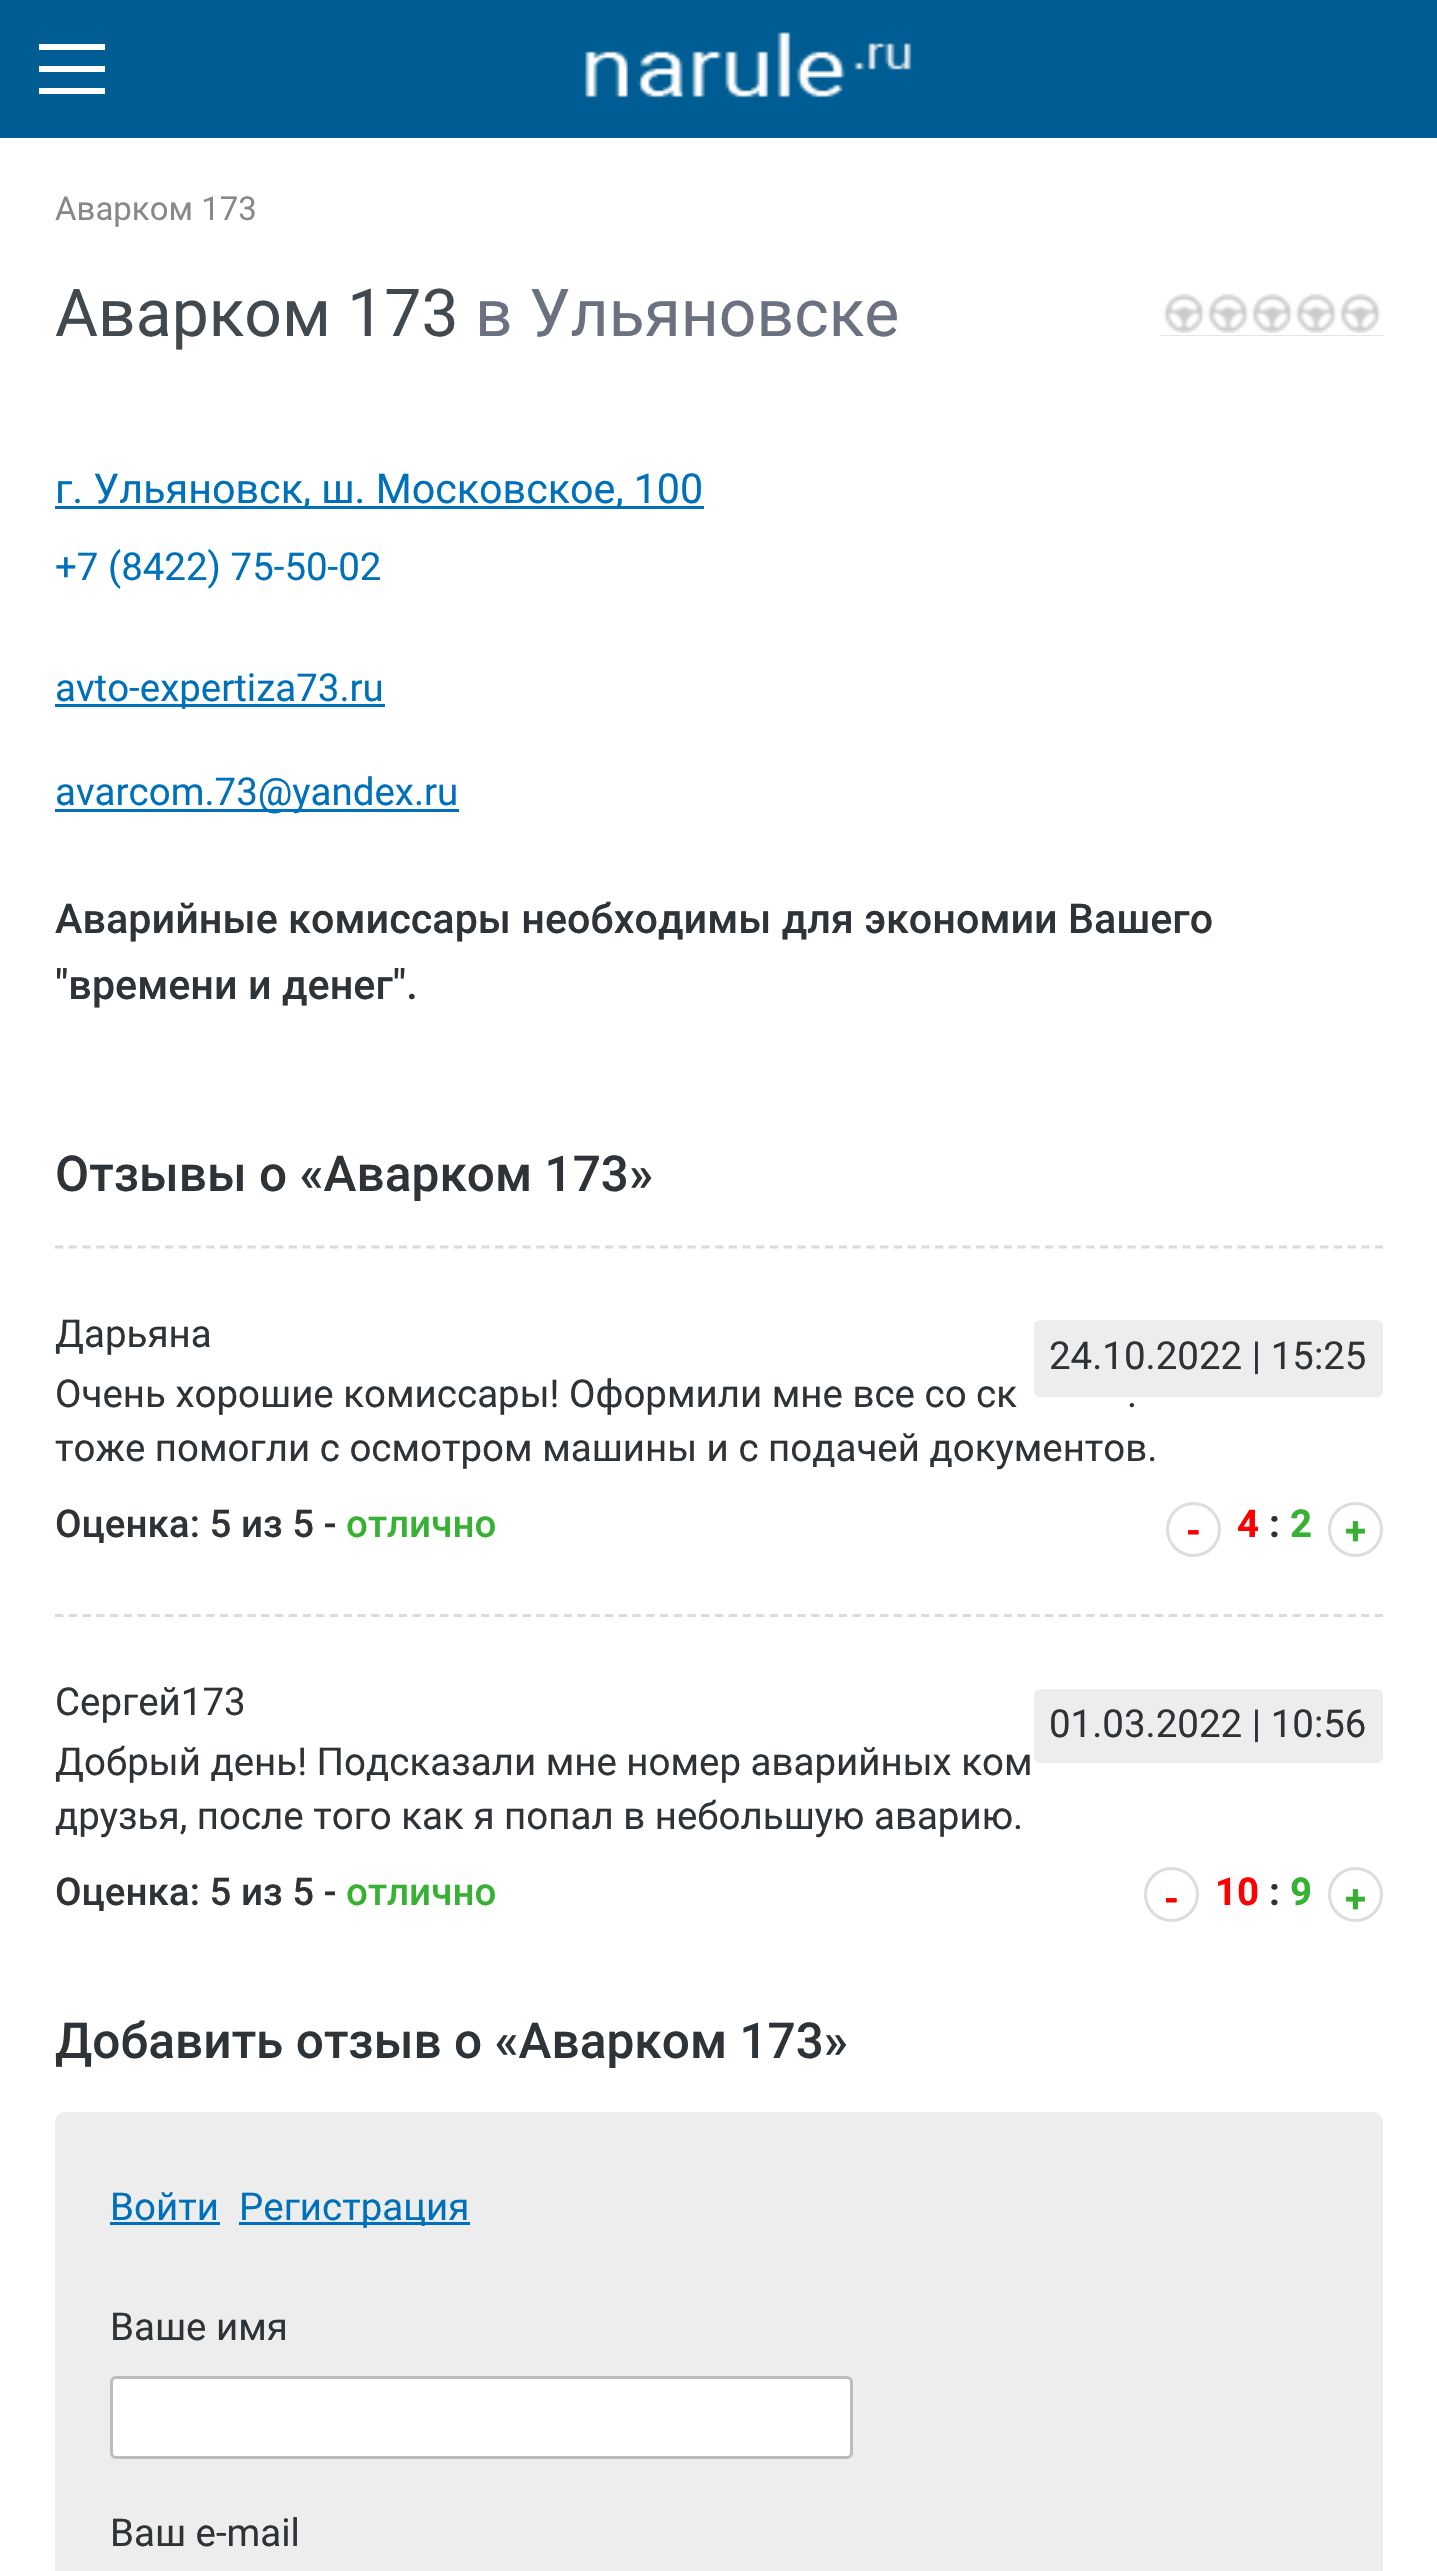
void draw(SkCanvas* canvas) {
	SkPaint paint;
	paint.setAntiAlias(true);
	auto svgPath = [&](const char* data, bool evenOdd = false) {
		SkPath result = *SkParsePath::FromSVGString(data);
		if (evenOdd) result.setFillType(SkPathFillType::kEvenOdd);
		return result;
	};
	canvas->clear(0xffffffff);
	paint.setColor(0xff005d93);
	canvas->drawRect(SkRect::MakeXYWH(0, 0, 1437, 138), paint);
	canvas->drawImageRect(SkImages::DeferredFromEncodedData(SkData::MakeFromFileName("img1.png")), SkRect::MakeXYWH(585, 32, 327, 66), SkSamplingOptions());
	paint.setColor(0xffffffff);
	canvas->drawRect(SkRect::MakeXYWH(39, 66, 66, 6), paint);
	canvas->drawRect(SkRect::MakeXYWH(39, 44, 66, 6), paint);
	canvas->drawRect(SkRect::MakeXYWH(39, 88, 66, 6), paint);
	SkFont f1(fontMgr->matchFamilyStyle("Roboto", SkFontStyle::Normal()), 33);
	f1.setSubpixel(true);
	paint.setColor(0xff888888);
	canvas->drawString("Аварком 173", 55, 220, f1, paint);
	SkFont f2(fontMgr->matchFamilyStyle("Roboto", SkFontStyle::Normal()), 66);
	f2.setSubpixel(true);
	paint.setColor(0xff41484e);
	canvas->drawString("Аварком 173", 55, 336, f2, paint);
	paint.setColor(0xff6b7181);
	canvas->drawString("в Ульяновске", 475, 336, f2, paint);
	paint.setColor(0xffcccccc);
	canvas->drawRect(SkRect::MakeXYWH(1161, 293, 222, 43), paint);
	canvas->drawImageRect(SkImages::DeferredFromEncodedData(SkData::MakeFromFileName("img2.png")), SkRect::MakeXYWH(1161, 292, 222, 44), SkSamplingOptions());
	paint.setColor(0xff0070ba);
	canvas->drawRect(SkRect::MakeXYWH(55, 506, 649, 3), paint);
	SkFont f3(fontMgr->matchFamilyStyle("Roboto", SkFontStyle::Normal()), 41.25);
	f3.setSubpixel(true);
	canvas->drawString("г. Ульяновск, ш. Московское, 100", 55, 503, f3, paint);
	SkFont f4(fontMgr->matchFamilyStyle("Roboto", SkFontStyle::Normal()), 38.5);
	f4.setSubpixel(true);
	canvas->drawString("+7 (8422) 75-50-02", 55, 580, f4, paint);
	canvas->drawRect(SkRect::MakeXYWH(55, 704, 330, 3), paint);
	canvas->drawString("avto-expertiza73.ru", 55, 701, f4, paint);
	canvas->drawRect(SkRect::MakeXYWH(55, 809, 404, 3), paint);
	canvas->drawString("avarcom.73@yandex.ru", 55, 805, f4, paint);
	SkFont f5(fontMgr->matchFamilyStyle("Roboto", SkFontStyle(500, SkFontStyle::kNormal_Width, SkFontStyle::kUpright_Slant)), 41.25);
	f5.setSubpixel(true);
	paint.setColor(0xff2e3338);
	canvas->drawString("Аварийные комиссары необходимы для экономии Вашего", 55, 933, f5, paint);
	canvas->drawString("\"времени и денег\".", 55, 999, f5, paint);
	SkFont f6(fontMgr->matchFamilyStyle("Roboto", SkFontStyle(500, SkFontStyle::kNormal_Width, SkFontStyle::kUpright_Slant)), 49.5);
	f6.setSubpixel(true);
	canvas->drawString("Отзывы о «Аварком 173»", 55, 1191, f6, paint);
	paint.setStroke(true);
	paint.setStrokeWidth(2.8);
	paint.setColor(0xffdbdbdb);
	paint.setPathEffect(SkDashPathEffect::Make({{8.25f, 5.5f}}, 0));
	canvas->drawPath(svgPath("M55 1247H1383"), paint);
	paint.setPathEffect(nullptr);
	paint.setStroke(false);
	paint.setColor(0xff2e3338);
	canvas->drawString("Дарьяна", 55, 1347, f4, paint);
	paint.setColor(0xffededed);
	canvas->drawRoundRect(SkRect::MakeXYWH(1034, 1320, 349, 77), 6, 6, paint);
	paint.setColor(0xff2e3338);
	canvas->drawString("24.10.2022 | 15:25", 1049, 1369, f4, paint);
	canvas->drawString("Очень хорошие комиссары! Оформили мне все со ск", 55, 1407, f4, paint);
	canvas->drawString(".", 1127, 1407, f4, paint);
	canvas->drawString("тоже помогли с осмотром машины и с подачей документов.", 55, 1461, f4, paint);
	SkFont f7(fontMgr->matchFamilyStyle("Roboto", SkFontStyle(500, SkFontStyle::kNormal_Width, SkFontStyle::kUpright_Slant)), 38.5);
	f7.setSubpixel(true);
	canvas->drawString("Оценка: 5 из 5 -", 55, 1537, f7, paint);
	paint.setColor(0xff36b133);
	canvas->drawString("отлично", 346, 1537, f7, paint);
	paint.setStroke(true);
	paint.setStrokeWidth(3);
	paint.setColor(0xffdddddd);
	canvas->drawCircle(1193.5, 1529.5, 26, paint);
	SkFont f8(fontMgr->matchFamilyStyle("Roboto", SkFontStyle::Bold()), 38.5);
	f8.setSubpixel(true);
	paint.setStroke(false);
	paint.setColor(0xffff0000);
	canvas->drawString("-", 1186, 1544, f8, paint);
	canvas->drawString("4", 1237, 1537, f8, paint);
	paint.setColor(0xff2e3338);
	canvas->drawString(":", 1269, 1537, f8, paint);
	paint.setColor(0xff36b133);
	canvas->drawString("2", 1290, 1537, f8, paint);
	paint.setStroke(true);
	paint.setColor(0xffdddddd);
	canvas->drawCircle(1355.5, 1529.5, 26, paint);
	paint.setStroke(false);
	paint.setColor(0xff36b133);
	canvas->drawString("+", 1345, 1544, f8, paint);
	paint.setStroke(true);
	paint.setStrokeWidth(2.8);
	paint.setColor(0xffdbdbdb);
	paint.setPathEffect(SkDashPathEffect::Make({{8.25f, 5.5f}}, 0));
	canvas->drawPath(svgPath("M55 1615.5H1383"), paint);
	paint.setPathEffect(nullptr);
	paint.setStroke(false);
	paint.setColor(0xff2e3338);
	canvas->drawString("Сергей173", 55, 1715, f4, paint);
	paint.setColor(0xffededed);
	canvas->drawRoundRect(SkRect::MakeXYWH(1034, 1689, 349, 74), 6, 6, paint);
	paint.setColor(0xff2e3338);
	canvas->drawString("01.03.2022 | 10:56", 1049, 1737, f4, paint);
	canvas->drawString("Добрый день! Подсказали мне номер аварийных ком", 55, 1775, f4, paint);
	canvas->drawString("друзья, после того как я попал в небольшую аварию.", 55, 1829, f4, paint);
	canvas->drawString("Оценка: 5 из 5 -", 55, 1905, f7, paint);
	paint.setColor(0xff36b133);
	canvas->drawString("отлично", 346, 1905, f7, paint);
	paint.setStroke(true);
	paint.setStrokeWidth(3);
	paint.setColor(0xffdddddd);
	canvas->drawCircle(1171.5, 1894.5, 26, paint);
	paint.setStroke(false);
	paint.setColor(0xffff0000);
	canvas->drawString("-", 1164, 1912, f8, paint);
	canvas->drawString("10", 1215, 1905, f8, paint);
	paint.setColor(0xff2e3338);
	canvas->drawString(":", 1269, 1905, f8, paint);
	paint.setColor(0xff36b133);
	canvas->drawString("9", 1290, 1905, f8, paint);
	paint.setStroke(true);
	paint.setColor(0xffdddddd);
	canvas->drawCircle(1355.5, 1894.5, 26, paint);
	paint.setStroke(false);
	paint.setColor(0xff36b133);
	canvas->drawString("+", 1345, 1912, f8, paint);
	paint.setColor(0xff2e3338);
	canvas->drawString("Добавить отзыв о «Аварком 173»", 55, 2058, f6, paint);
	paint.setColor(0xffededed);
	canvas->drawRoundRect(SkRect::MakeXYWH(55, 2112, 1328, 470), 11, 11, paint);
	paint.setColor(0xff0070ba);
	canvas->drawString("Войти", 110, 2220, f4, paint);
	canvas->drawRect(SkRect::MakeXYWH(110, 2222, 110, 3), paint);
	canvas->drawRect(SkRect::MakeXYWH(239, 2222, 231, 3), paint);
	canvas->drawString("Регистрация", 239, 2220, f4, paint);
	paint.setColor(0xff2e3338);
	canvas->drawString("Ваше имя", 110, 2340, f4, paint);
	paint.setColor(0xffffffff);
	canvas->drawRoundRect(SkRect::MakeXYWH(111.5, 2377.5, 740, 80), 4.5, 4.5, paint);
	paint.setStroke(true);
	paint.setColor(0xffbcbcbc);
	canvas->drawRoundRect(SkRect::MakeXYWH(111.5, 2377.5, 740, 80), 4.5, 4.5, paint);
	paint.setStroke(false);
	paint.setColor(0xff2e3338);
	canvas->drawString("Ваш e-mail", 110, 2546, f4, paint);
}
